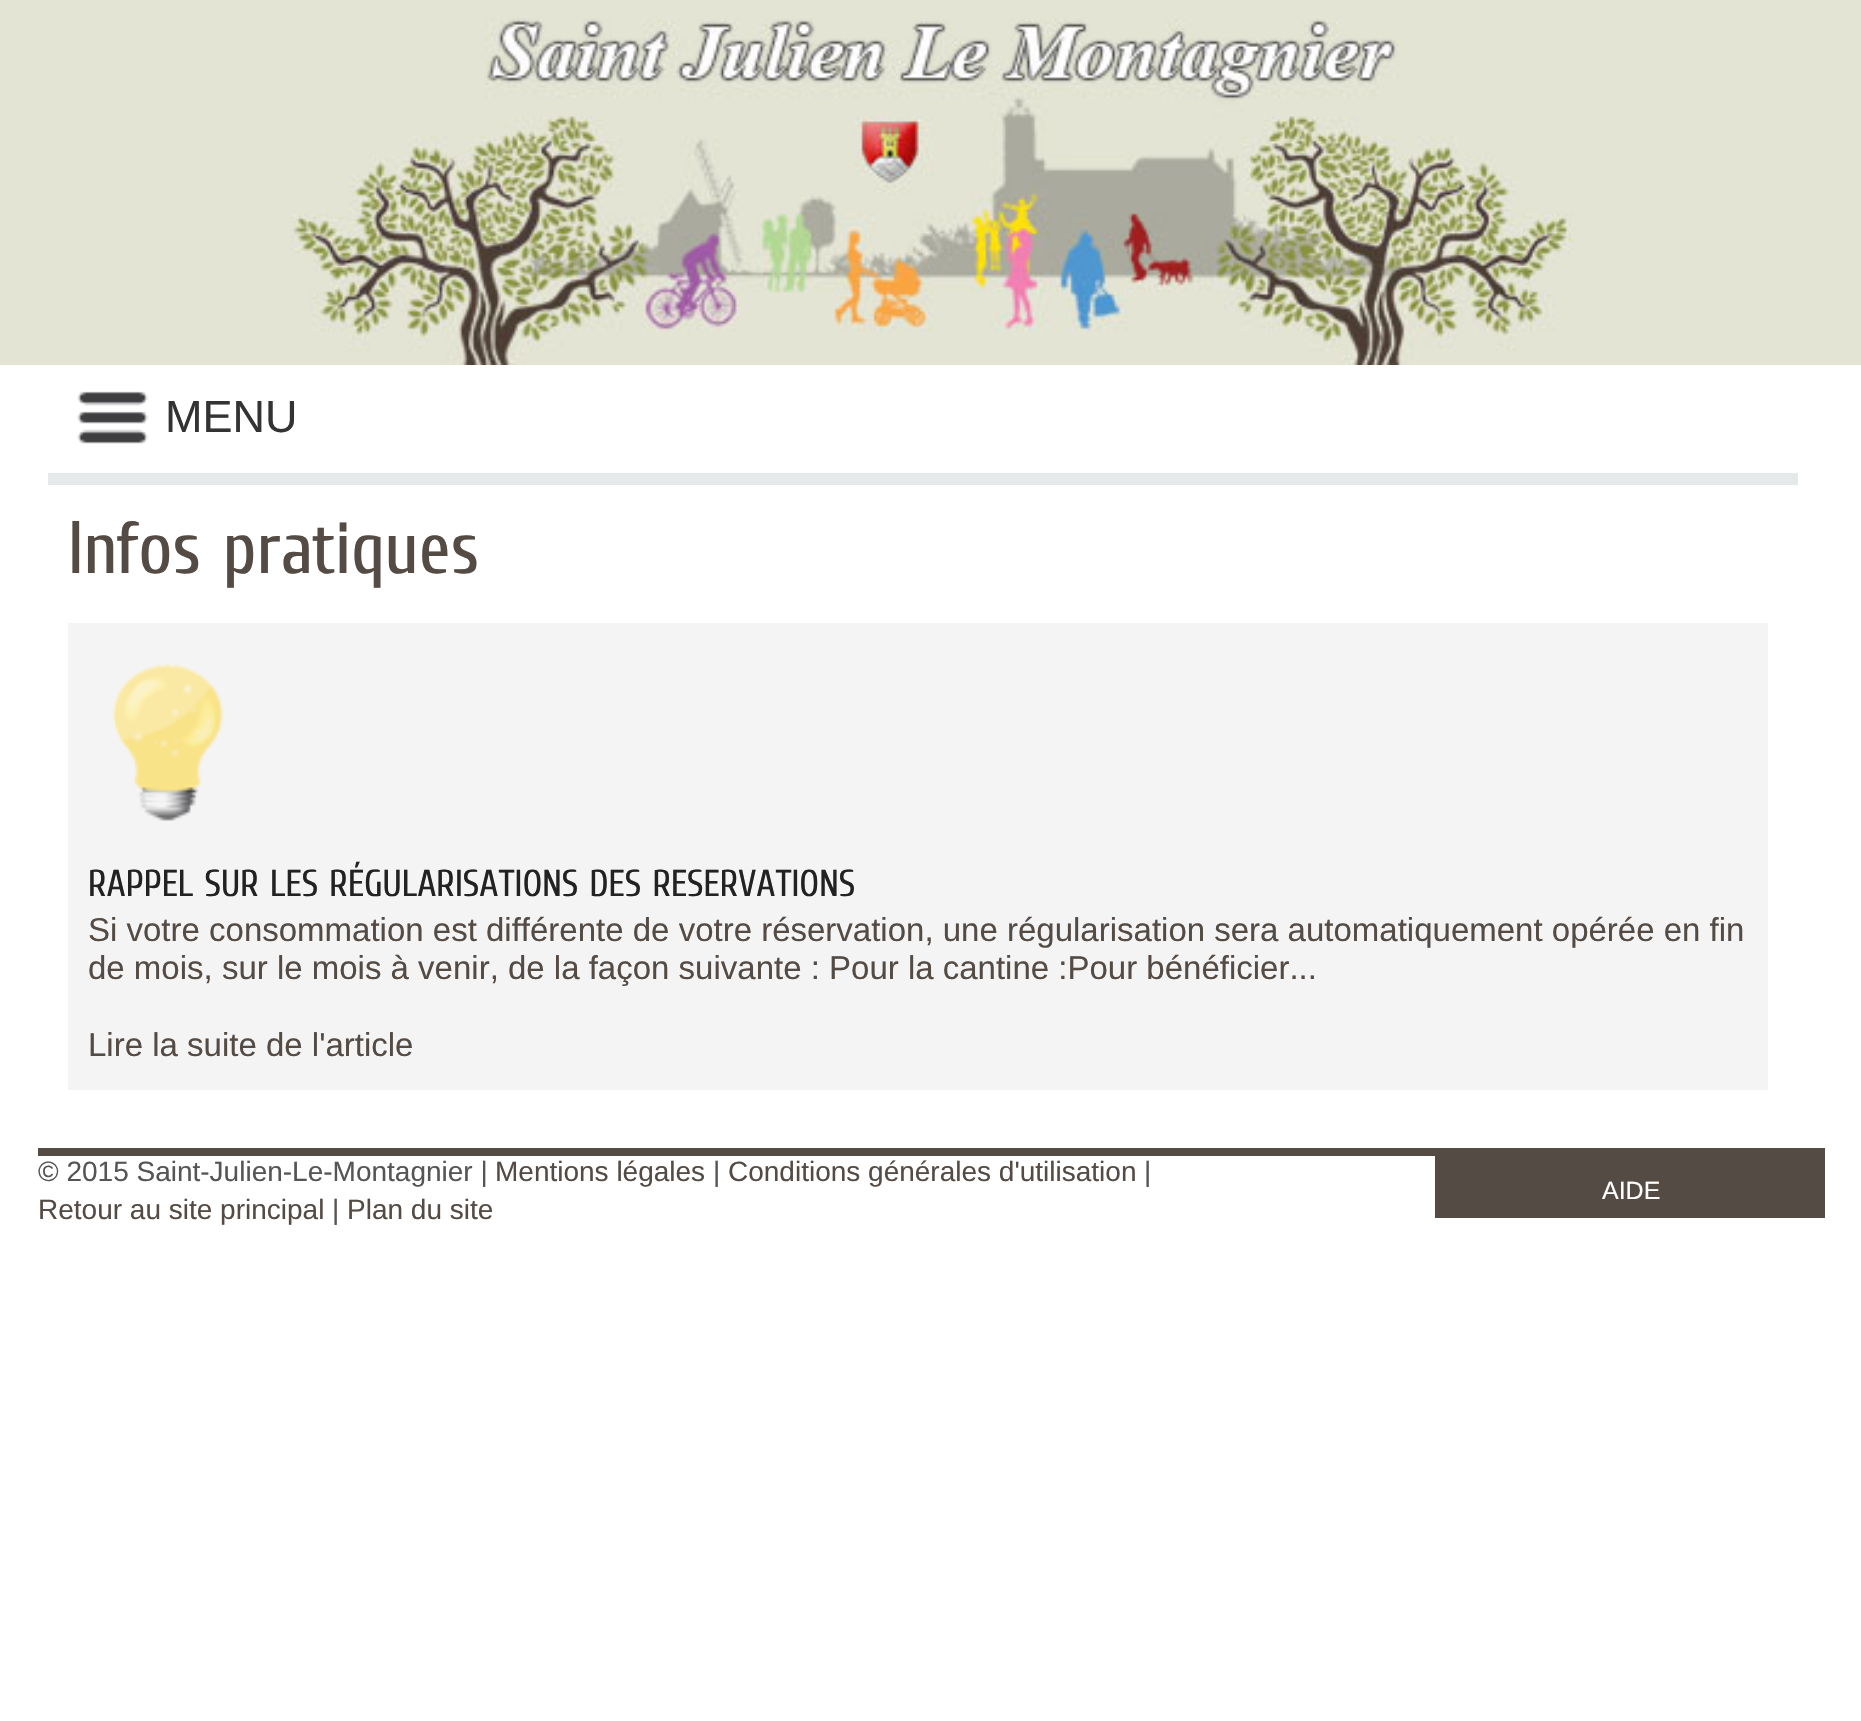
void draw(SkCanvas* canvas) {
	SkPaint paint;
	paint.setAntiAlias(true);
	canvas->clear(0xffffffff);
	canvas->drawImageRect(SkImages::DeferredFromEncodedData(SkData::MakeFromFileName("img1.png")), SkRect::MakeXYWH(0, 0, 1861, 365), SkSamplingOptions());
	paint.setColor(0xffe5e9ea);
	canvas->drawRect(SkRect::MakeXYWH(48, 473, 1750, 12), paint);
	canvas->drawImageRect(SkImages::DeferredFromEncodedData(SkData::MakeFromFileName("img2.png")), SkRect::MakeXYWH(77, 391, 72, 53), SkSamplingOptions());
	SkFont f1(fontMgr->matchFamilyStyle("Liberation Sans", SkFontStyle::Normal()), 45);
	f1.setSubpixel(true);
	paint.setColor(0xff333333);
	canvas->drawString("MENU", 165, 432, f1, paint);
	SkFont f2(fontMgr->matchFamilyStyle("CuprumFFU", SkFontStyle::Normal()), 74.25);
	f2.setSubpixel(true);
	paint.setColor(0xff544b45);
	canvas->drawString("Infos pratiques", 68, 573, f2, paint);
	paint.setColor(0xfff4f4f4);
	canvas->drawRect(SkRect::MakeXYWH(68, 623, 1700, 467), paint);
	canvas->drawImageRect(SkImages::DeferredFromEncodedData(SkData::MakeFromFileName("img3.png")), SkRect::MakeXYWH(112, 664, 112, 157), SkSamplingOptions());
	SkFont f3(fontMgr->matchFamilyStyle("CuprumFFU", SkFontStyle::Normal()), 37.5);
	f3.setSubpixel(true);
	paint.setColor(0xff222222);
	canvas->drawString("RAPPEL SUR LES RÉGULARISATIONS DES RESERVATIONS", 88, 896, f3, paint);
	SkFont f4(fontMgr->matchFamilyStyle("Liberation Sans", SkFontStyle::Normal()), 33);
	f4.setSubpixel(true);
	paint.setColor(0xff544b45);
	canvas->drawString("Si votre consommation est différente de votre réservation, une régularisation sera automatiquement opérée en fin", 88, 941, f4, paint);
	canvas->drawString("de mois, sur le mois à venir, de la façon suivante : Pour la cantine :Pour bénéficier...", 88, 979, f4, paint);
	canvas->drawString("Lire la suite de l'article", 88, 1056, f4, paint);
	canvas->drawRect(SkRect::MakeXYWH(38, 1148, 1787, 8), paint);
	SkFont f5(fontMgr->matchFamilyStyle("Liberation Sans", SkFontStyle::Normal()), 28);
	f5.setSubpixel(true);
	paint.setColor(0xff555555);
	canvas->drawString("© 2015 Saint-Julien-Le-Montagnier |", 38, 1181, f5, paint);
	paint.setColor(0xff544b45);
	canvas->drawString("Mentions légales", 495, 1181, f5, paint);
	paint.setColor(0xff555555);
	canvas->drawString("|", 713, 1181, f5, paint);
	paint.setColor(0xff544b45);
	canvas->drawString("Conditions générales d'utilisation", 728, 1181, f5, paint);
	paint.setColor(0xff555555);
	canvas->drawString("|", 1144, 1181, f5, paint);
	paint.setColor(0xff544b45);
	canvas->drawString("Retour au site principal", 38, 1219, f5, paint);
	paint.setColor(0xff555555);
	canvas->drawString("|", 332, 1219, f5, paint);
	paint.setColor(0xff544b45);
	canvas->drawString("Plan du site", 347, 1219, f5, paint);
	canvas->drawRect(SkRect::MakeXYWH(1435, 1156, 390, 62), paint);
	SkFont f6(fontMgr->matchFamilyStyle("Liberation Sans", SkFontStyle::Normal()), 25);
	f6.setSubpixel(true);
	paint.setColor(0xffffffff);
	canvas->drawString("AIDE", 1602, 1199, f6, paint);
}
